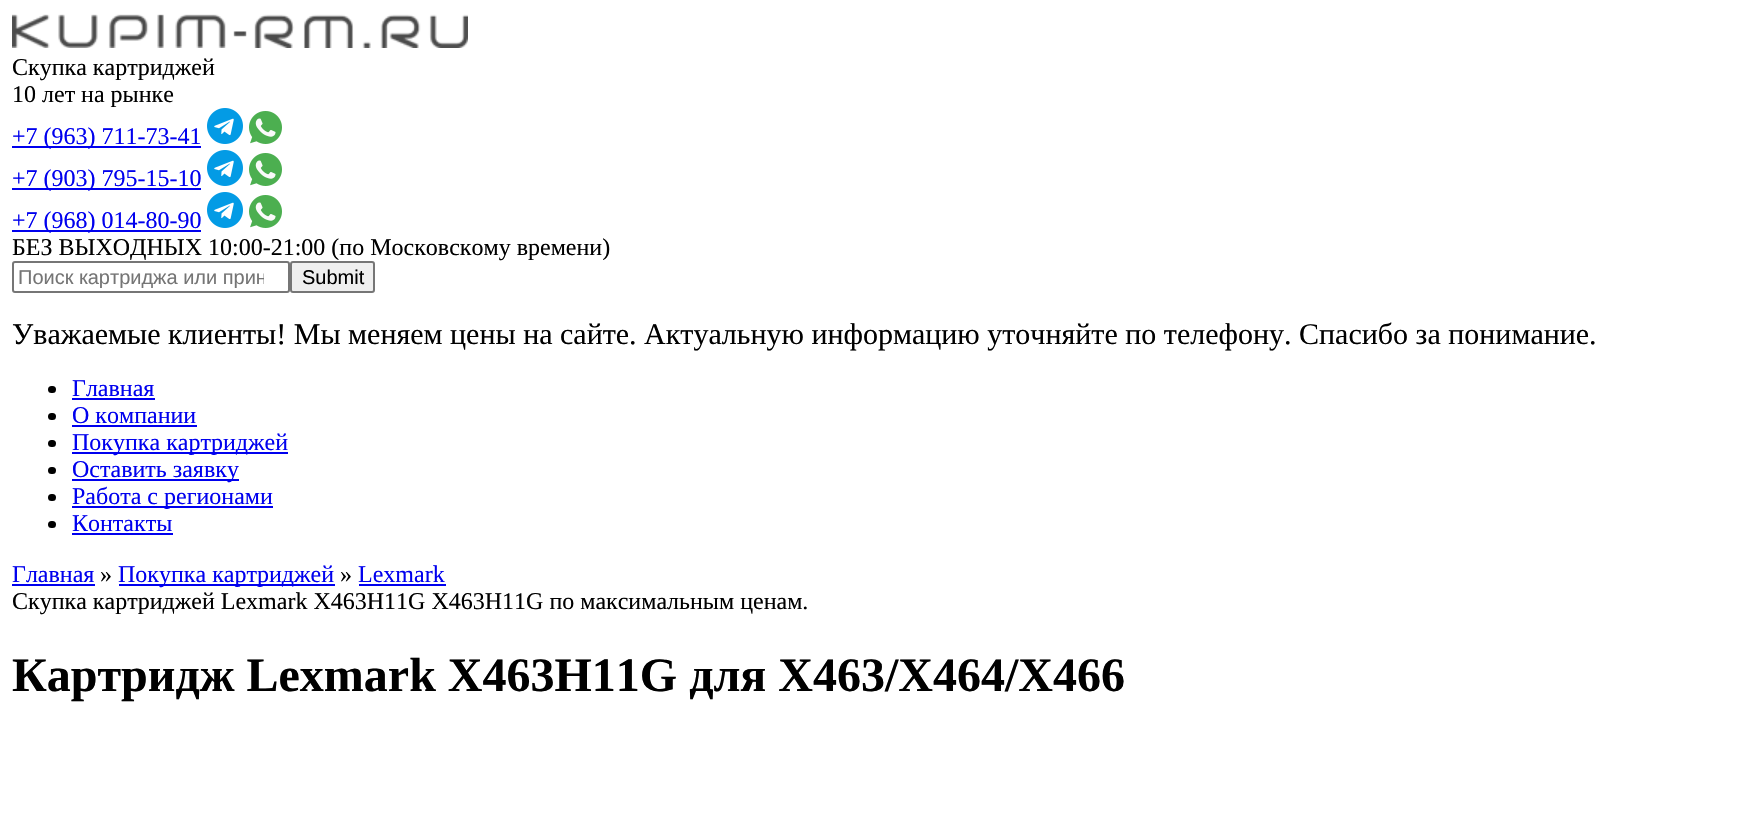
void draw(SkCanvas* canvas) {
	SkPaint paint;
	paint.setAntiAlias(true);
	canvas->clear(0xffffffff);
	canvas->drawImageRect(SkImages::DeferredFromEncodedData(SkData::MakeFromFileName("img1.png")), SkRect::MakeXYWH(12, 14, 456, 34), SkSamplingOptions());
	SkFont f1(fontMgr->matchFamilyStyle("Liberation Serif", SkFontStyle::Normal()), 24);
	f1.setSubpixel(true);
	paint.setColor(0xff000000);
	canvas->drawString("Скупка картриджей", 12, 75, f1, paint);
	canvas->drawString("10 лет на рынке", 12, 102, f1, paint);
	paint.setColor(0xff0000ee);
	canvas->drawRect(SkRect::MakeXYWH(12, 146, 189, 2), paint);
	canvas->drawString("+7 (963) 711-73-41", 12, 144, f1, paint);
	canvas->drawImageRect(SkImages::DeferredFromEncodedData(SkData::MakeFromFileName("img2.png")), SkRect::MakeXYWH(207, 108, 36, 36), SkSamplingOptions());
	canvas->drawImageRect(SkImages::DeferredFromEncodedData(SkData::MakeFromFileName("img3.png")), SkRect::MakeXYWH(249, 111, 33, 33), SkSamplingOptions());
	canvas->drawRect(SkRect::MakeXYWH(12, 188, 189, 2), paint);
	canvas->drawString("+7 (903) 795-15-10", 12, 186, f1, paint);
	canvas->drawImageRect(SkImages::DeferredFromEncodedData(SkData::MakeFromFileName("img2.png")), SkRect::MakeXYWH(207, 150, 36, 36), SkSamplingOptions());
	canvas->drawImageRect(SkImages::DeferredFromEncodedData(SkData::MakeFromFileName("img3.png")), SkRect::MakeXYWH(249, 153, 33, 33), SkSamplingOptions());
	canvas->drawRect(SkRect::MakeXYWH(12, 230, 189, 2), paint);
	canvas->drawString("+7 (968) 014-80-90", 12, 228, f1, paint);
	canvas->drawImageRect(SkImages::DeferredFromEncodedData(SkData::MakeFromFileName("img2.png")), SkRect::MakeXYWH(207, 192, 36, 36), SkSamplingOptions());
	canvas->drawImageRect(SkImages::DeferredFromEncodedData(SkData::MakeFromFileName("img3.png")), SkRect::MakeXYWH(249, 195, 33, 33), SkSamplingOptions());
	paint.setColor(0xff000000);
	canvas->drawString("БЕЗ ВЫХОДНЫХ 10:00-21:00 (по Московскому времени)", 12, 255, f1, paint);
	paint.setStroke(true);
	paint.setStrokeWidth(2);
	paint.setColor(0xff767676);
	canvas->drawRoundRect(SkRect::MakeXYWH(13, 262, 276, 30), 2, 2, paint);
	canvas->save();
	canvas->clipRect(SkRect::MakeXYWH(18, 266, 246, 22));
	SkFont f2(fontMgr->matchFamilyStyle("Liberation Sans", SkFontStyle::Normal()), 20);
	f2.setSubpixel(true);
	paint.setStroke(false);
	paint.setColor(0xff757575);
	canvas->drawString("Поиск картриджа или прин", 18, 284, f2, paint);
	canvas->restore();
	paint.setColor(0xffefefef);
	canvas->drawRoundRect(SkRect::MakeXYWH(291, 262, 83, 30), 2, 2, paint);
	paint.setStroke(true);
	paint.setColor(0xff767676);
	canvas->drawRoundRect(SkRect::MakeXYWH(291, 262, 83, 30), 2, 2, paint);
	paint.setStroke(false);
	paint.setColor(0xff000000);
	canvas->drawString("Submit", 302, 284, f2, paint);
	SkFont f3(fontMgr->matchFamilyStyle("Liberation Serif", SkFontStyle::Normal()), 30);
	f3.setSubpixel(true);
	canvas->drawString("Уважаемые клиенты! Мы меняем цены на сайте. Актуальную информацию уточняйте по телефону. Спасибо за понимание.", 12, 344, f3, paint);
	canvas->drawRoundRect(SkRect::MakeXYWH(48, 386, 8, 7), 3.5, 3.5, paint);
	paint.setColor(0xff0000ee);
	canvas->drawString("Главная", 72, 396, f1, paint);
	canvas->drawRect(SkRect::MakeXYWH(72, 398, 83, 2), paint);
	paint.setColor(0xff000000);
	canvas->drawRoundRect(SkRect::MakeXYWH(48, 413, 8, 7), 3.5, 3.5, paint);
	paint.setColor(0xff0000ee);
	canvas->drawString("О компании", 72, 423, f1, paint);
	canvas->drawRect(SkRect::MakeXYWH(72, 425, 125, 2), paint);
	paint.setColor(0xff000000);
	canvas->drawRoundRect(SkRect::MakeXYWH(48, 440, 8, 7), 3.5, 3.5, paint);
	paint.setColor(0xff0000ee);
	canvas->drawRect(SkRect::MakeXYWH(72, 452, 216, 2), paint);
	canvas->drawString("Покупка картриджей", 72, 450, f1, paint);
	paint.setColor(0xff000000);
	canvas->drawRoundRect(SkRect::MakeXYWH(48, 467, 8, 7), 3.5, 3.5, paint);
	paint.setColor(0xff0000ee);
	canvas->drawRect(SkRect::MakeXYWH(72, 479, 167, 2), paint);
	canvas->drawString("Оставить заявку", 72, 477, f1, paint);
	paint.setColor(0xff000000);
	canvas->drawRoundRect(SkRect::MakeXYWH(48, 494, 8, 7), 3.5, 3.5, paint);
	paint.setColor(0xff0000ee);
	canvas->drawRect(SkRect::MakeXYWH(72, 506, 201, 2), paint);
	canvas->drawString("Работа с регионами", 72, 504, f1, paint);
	paint.setColor(0xff000000);
	canvas->drawRoundRect(SkRect::MakeXYWH(48, 521, 8, 7), 3.5, 3.5, paint);
	paint.setColor(0xff0000ee);
	canvas->drawString("Контакты", 72, 531, f1, paint);
	canvas->drawRect(SkRect::MakeXYWH(72, 533, 101, 2), paint);
	canvas->drawString("Главная", 12, 582, f1, paint);
	canvas->drawRect(SkRect::MakeXYWH(12, 584, 83, 2), paint);
	paint.setColor(0xff000000);
	canvas->drawString("»", 100, 582, f1, paint);
	paint.setColor(0xff0000ee);
	canvas->drawRect(SkRect::MakeXYWH(119, 584, 216, 2), paint);
	canvas->drawString("Покупка картриджей", 118, 582, f1, paint);
	paint.setColor(0xff000000);
	canvas->drawString("»", 340, 582, f1, paint);
	paint.setColor(0xff0000ee);
	canvas->drawString("Lexmark", 358, 582, f1, paint);
	canvas->drawRect(SkRect::MakeXYWH(359, 584, 87, 2), paint);
	paint.setColor(0xff000000);
	canvas->drawString("Скупка картриджей Lexmark X463H11G X463H11G по максимальным ценам.", 12, 609, f1, paint);
	SkFont f4(fontMgr->matchFamilyStyle("Liberation Serif", SkFontStyle::Bold()), 48);
	f4.setSubpixel(true);
	canvas->drawString("Картридж Lexmark X463H11G для X463/X464/X466", 12, 691, f4, paint);
}
